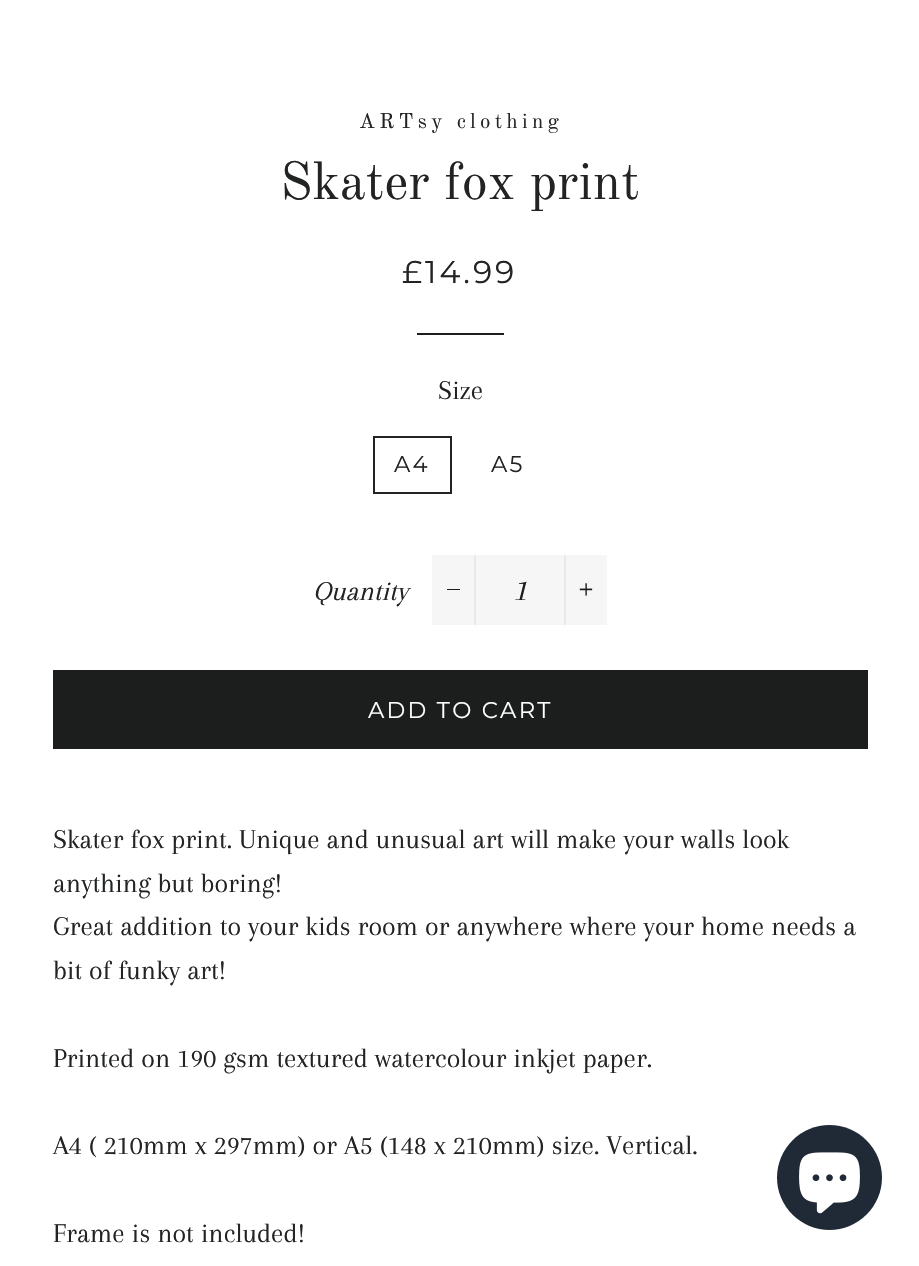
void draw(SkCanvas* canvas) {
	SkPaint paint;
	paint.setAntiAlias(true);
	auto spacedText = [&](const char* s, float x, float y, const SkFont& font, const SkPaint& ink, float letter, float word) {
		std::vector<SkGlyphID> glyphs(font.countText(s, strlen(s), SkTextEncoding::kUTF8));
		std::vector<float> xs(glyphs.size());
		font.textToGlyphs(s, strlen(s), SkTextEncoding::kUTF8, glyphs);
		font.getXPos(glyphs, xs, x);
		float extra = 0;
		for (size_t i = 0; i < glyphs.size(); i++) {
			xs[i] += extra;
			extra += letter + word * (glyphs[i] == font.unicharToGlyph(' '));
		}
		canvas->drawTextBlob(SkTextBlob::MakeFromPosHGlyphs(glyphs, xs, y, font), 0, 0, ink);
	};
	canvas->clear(0xffffffff);
	SkFont f1(fontMgr->matchFamilyStyle("Old Standard TT", SkFontStyle::Normal()), 21);
	f1.setSubpixel(true);
	paint.setColor(0xff222323);
	spacedText("ARTsy clothing", 359, 128, f1, paint, 4.25, 0);
	SkFont f2(fontMgr->matchFamilyStyle("Old Standard TT", SkFontStyle::Normal()), 52.5);
	f2.setSubpixel(true);
	canvas->drawString("Skater fox print", 280, 199, f2, paint);
	SkFont f3(fontMgr->matchFamilyStyle("Montserrat", SkFontStyle(100, SkFontStyle::kNormal_Width, SkFontStyle::kUpright_Slant)), 31.5);
	f3.setSubpixel(true);
	spacedText("£14.99", 402, 283, f3, paint, 3, 0);
	paint.setColor(0xff1c1d1d);
	canvas->drawRect(SkRect::MakeXYWH(417, 333, 87, 2), paint);
	SkFont f4(fontMgr->matchFamilyStyle("Arapey", SkFontStyle::Normal()), 28);
	f4.setSubpixel(true);
	paint.setColor(0xff222323);
	canvas->drawString("Size", 438, 399, f4, paint);
	paint.setStroke(true);
	paint.setStrokeWidth(2);
	canvas->drawRect(SkRect::MakeXYWH(374, 437, 77, 56), paint);
	SkFont f5(fontMgr->matchFamilyStyle("Montserrat", SkFontStyle(100, SkFontStyle::kNormal_Width, SkFontStyle::kUpright_Slant)), 22.75);
	f5.setSubpixel(true);
	paint.setStroke(false);
	spacedText("A4", 394, 472, f5, paint, 2.25, 0);
	spacedText("A5", 491, 472, f5, paint, 2.25, 0);
	SkFont f6(fontMgr->matchFamilyStyle("Arapey", SkFontStyle::Italic()), 28);
	f6.setSubpixel(true);
	canvas->drawString("Quantity", 313, 600, f6, paint);
	paint.setColor(0xfff6f6f6);
	canvas->drawRect(SkRect::MakeXYWH(432, 555, 175, 70), paint);
	paint.setColor(0xffe9e9e9);
	canvas->drawRect(SkRect::MakeXYWH(474, 555, 2, 70), paint);
	paint.setColor(0xff1c1d1d);
	canvas->drawRect(SkRect::MakeXYWH(447, 589, 13, 1), paint);
	SkFont f7(fontMgr->matchFamilyStyle("Arapey", SkFontStyle::Italic()), 31.5);
	f7.setSubpixel(true);
	canvas->drawString("1", 513, 600, f7, paint);
	paint.setColor(0xffe9e9e9);
	canvas->drawRect(SkRect::MakeXYWH(564, 555, 2, 70), paint);
	canvas->drawImageRect(SkImages::DeferredFromEncodedData(SkData::MakeFromFileName("img1.png")), SkRect::MakeXYWH(579, 583, 14, 13), SkSamplingOptions());
	paint.setColor(0xff1c1d1d);
	canvas->drawRect(SkRect::MakeXYWH(53, 670, 815, 79), paint);
	paint.setColor(0xffffffff);
	spacedText("ADD TO CART", 368, 718, f5, paint, 2.25, 0);
	paint.setColor(0xff222323);
	canvas->drawString("Skater fox print. Unique and unusual art will make your walls look", 53, 848, f4, paint);
	canvas->drawString("anything but boring!", 53, 892, f4, paint);
	canvas->drawString("Great addition to your kids room or anywhere where your home needs a", 53, 935, f4, paint);
	canvas->drawString("bit of funky art!", 53, 979, f4, paint);
	canvas->drawString("Printed on 190 gsm textured watercolour inkjet paper.", 53, 1067, f4, paint);
	canvas->drawString("A4 ( 210mm x 297mm) or A5 (148 x 210mm) size. Vertical.", 53, 1154, f4, paint);
	canvas->drawString("Frame is not included!", 53, 1242, f4, paint);
	paint.setColor(0xff202a36);
	canvas->drawCircle(829.5, 1177.5, 52.5, paint);
	canvas->drawImageRect(SkImages::DeferredFromEncodedData(SkData::MakeFromFileName("img2.png")), SkRect::MakeXYWH(799, 1152, 61, 62), SkSamplingOptions());
}
